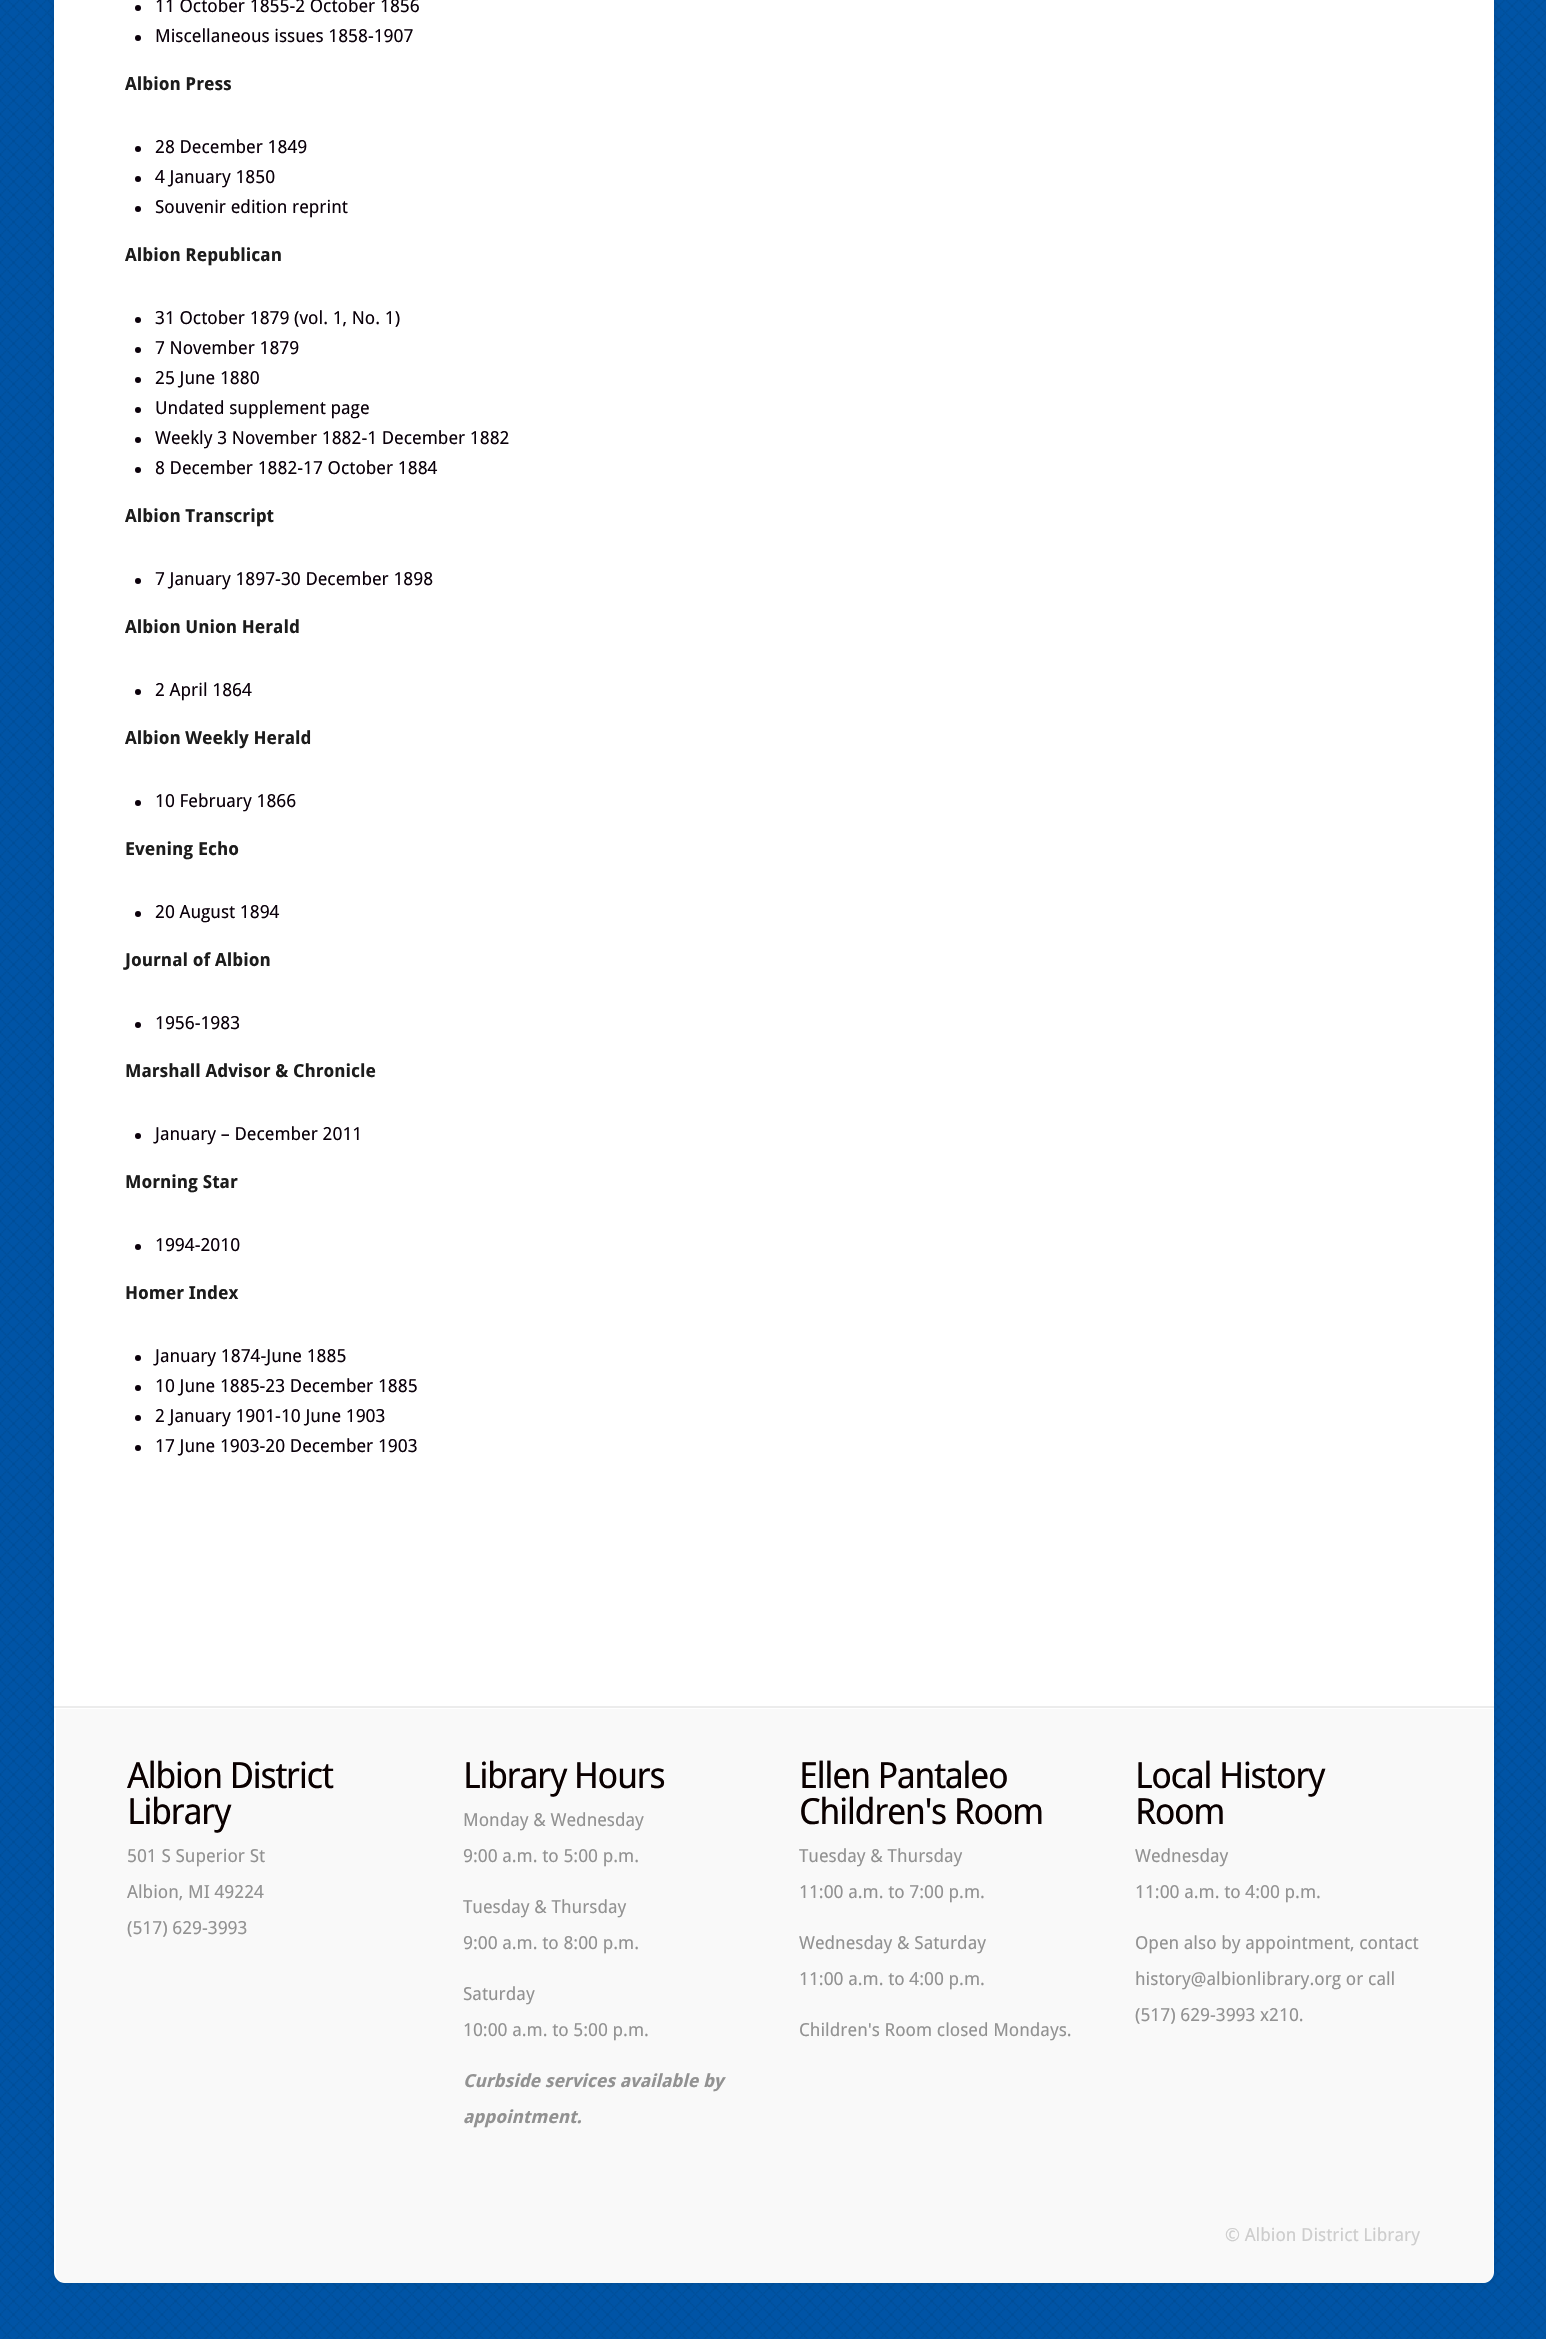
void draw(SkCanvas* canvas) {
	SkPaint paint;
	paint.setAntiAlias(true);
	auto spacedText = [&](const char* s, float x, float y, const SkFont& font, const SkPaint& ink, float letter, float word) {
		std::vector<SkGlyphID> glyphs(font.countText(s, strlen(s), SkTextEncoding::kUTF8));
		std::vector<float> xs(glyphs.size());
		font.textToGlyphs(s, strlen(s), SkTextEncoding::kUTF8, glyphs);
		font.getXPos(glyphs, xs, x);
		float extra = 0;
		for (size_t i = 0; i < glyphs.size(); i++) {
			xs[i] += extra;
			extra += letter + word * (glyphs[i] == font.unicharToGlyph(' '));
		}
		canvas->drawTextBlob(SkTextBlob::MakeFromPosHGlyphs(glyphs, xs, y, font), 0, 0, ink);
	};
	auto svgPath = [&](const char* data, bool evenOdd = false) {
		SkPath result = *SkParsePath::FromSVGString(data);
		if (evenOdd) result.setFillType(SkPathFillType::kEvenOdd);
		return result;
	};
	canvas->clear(0xff0054a6);
	canvas->drawImageRect(SkImages::DeferredFromEncodedData(SkData::MakeFromFileName("img1.png")), SkRect::MakeXYWH(0, 0, 1546, 2339), SkSamplingOptions());
	paint.setColor(0x1a000000);
	paint.setMaskFilter(SkMaskFilter::MakeBlur(kNormal_SkBlurStyle, 4.5));
	canvas->drawRoundRect(SkRect::MakeXYWH(54, -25, 1440, 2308), 11, 11, paint);
	paint.setMaskFilter(nullptr);
	paint.setColor(0xffffffff);
	canvas->drawRoundRect(SkRect::MakeXYWH(54, -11, 1440, 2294), 11, 11, paint);
	paint.setColor(0xff0a000a);
	canvas->drawCircle(138, 8, 3, paint);
	SkFont f1(fontMgr->matchFamilyStyle("Droid Sans", SkFontStyle::Normal()), 18);
	f1.setSubpixel(true);
	canvas->drawString("11 October 1855-2 October 1856", 155, 12, f1, paint);
	canvas->drawCircle(138, 38, 3, paint);
	canvas->drawString("Miscellaneous issues 1858-1907", 155, 42, f1, paint);
	SkFont f2(fontMgr->matchFamilyStyle("Droid Sans", SkFontStyle::Bold()), 18);
	f2.setSubpixel(true);
	paint.setColor(0xff1c1c1c);
	canvas->drawString("Albion Press", 125, 90, f2, paint);
	paint.setColor(0xff0a000a);
	canvas->drawCircle(138, 149, 3, paint);
	canvas->drawString("28 December 1849", 155, 153, f1, paint);
	canvas->drawCircle(138, 179, 3, paint);
	canvas->drawString("4 January 1850", 155, 183, f1, paint);
	canvas->drawCircle(138, 209, 3, paint);
	canvas->drawString("Souvenir edition reprint", 155, 213, f1, paint);
	paint.setColor(0xff1c1c1c);
	canvas->drawString("Albion Republican", 125, 261, f2, paint);
	paint.setColor(0xff0a000a);
	canvas->drawCircle(138, 320, 3, paint);
	canvas->drawString("31 October 1879 (vol. 1, No. 1)", 155, 324, f1, paint);
	canvas->drawCircle(138, 350, 3, paint);
	canvas->drawString("7 November 1879", 155, 354, f1, paint);
	canvas->drawCircle(138, 380, 3, paint);
	canvas->drawString("25 June 1880", 155, 384, f1, paint);
	canvas->drawCircle(138, 410, 3, paint);
	canvas->drawString("Undated supplement page", 155, 414, f1, paint);
	canvas->drawCircle(138, 440, 3, paint);
	canvas->drawString("Weekly 3 November 1882-1 December 1882", 155, 444, f1, paint);
	canvas->drawCircle(138, 470, 3, paint);
	canvas->drawString("8 December 1882-17 October 1884", 155, 474, f1, paint);
	paint.setColor(0xff1c1c1c);
	canvas->drawString("Albion Transcript", 125, 522, f2, paint);
	paint.setColor(0xff0a000a);
	canvas->drawCircle(138, 581, 3, paint);
	canvas->drawString("7 January 1897-30 December 1898", 155, 585, f1, paint);
	paint.setColor(0xff1c1c1c);
	canvas->drawString("Albion Union Herald", 125, 633, f2, paint);
	paint.setColor(0xff0a000a);
	canvas->drawCircle(138, 692, 3, paint);
	canvas->drawString("2 April 1864", 155, 696, f1, paint);
	paint.setColor(0xff1c1c1c);
	canvas->drawString("Albion Weekly Herald", 125, 744, f2, paint);
	paint.setColor(0xff0a000a);
	canvas->drawCircle(138, 803, 3, paint);
	canvas->drawString("10 February 1866", 155, 807, f1, paint);
	paint.setColor(0xff1c1c1c);
	canvas->drawString("Evening Echo", 125, 855, f2, paint);
	paint.setColor(0xff0a000a);
	canvas->drawCircle(138, 914, 3, paint);
	canvas->drawString("20 August 1894", 155, 918, f1, paint);
	paint.setColor(0xff1c1c1c);
	canvas->drawString("Journal of Albion", 125, 966, f2, paint);
	paint.setColor(0xff0a000a);
	canvas->drawCircle(138, 1025, 3, paint);
	canvas->drawString("1956-1983", 155, 1029, f1, paint);
	paint.setColor(0xff1c1c1c);
	canvas->drawString("Marshall Advisor & Chronicle", 125, 1077, f2, paint);
	paint.setColor(0xff0a000a);
	canvas->drawCircle(138, 1136, 3, paint);
	canvas->drawString("January – December 2011", 155, 1140, f1, paint);
	paint.setColor(0xff1c1c1c);
	canvas->drawString("Morning Star", 125, 1188, f2, paint);
	paint.setColor(0xff0a000a);
	canvas->drawCircle(138, 1247, 3, paint);
	canvas->drawString("1994-2010", 155, 1251, f1, paint);
	paint.setColor(0xff1c1c1c);
	canvas->drawString("Homer Index", 125, 1299, f2, paint);
	paint.setColor(0xff0a000a);
	canvas->drawCircle(138, 1358, 3, paint);
	canvas->drawString("January 1874-June 1885", 155, 1362, f1, paint);
	canvas->drawCircle(138, 1388, 3, paint);
	canvas->drawString("10 June 1885-23 December 1885", 155, 1392, f1, paint);
	canvas->drawCircle(138, 1418, 3, paint);
	canvas->drawString("2 January 1901-10 June 1903", 155, 1422, f1, paint);
	canvas->drawCircle(138, 1448, 3, paint);
	canvas->drawString("17 June 1903-20 December 1903", 155, 1452, f1, paint);
	paint.setColor(0xffececec);
	canvas->drawRect(SkRect::MakeXYWH(54, 1706, 1440, 2), paint);
	paint.setColor(0xfff9f9f9);
	canvas->drawPath(svgPath("M56 1709H1493V2272C1493 2278 1488 2283 1482 2283H67C61 2283 56 2278 56 2272Z"), paint);
	SkFont f3(fontMgr->matchFamilyStyle("Droid Sans", SkFontStyle::Normal()), 36);
	f3.setSubpixel(true);
	paint.setColor(0xff0a0000);
	spacedText("Albion District", 127, 1788, f3, paint, -1.5, 0);
	spacedText("Library", 127, 1824, f3, paint, -1.5, 0);
	paint.setColor(0xff929292);
	canvas->drawString("501 S Superior St", 127, 1862, f1, paint);
	canvas->drawString("Albion, MI 49224", 127, 1898, f1, paint);
	canvas->drawString("(517) 629-3993", 127, 1934, f1, paint);
	paint.setColor(0xff0a0000);
	spacedText("Library Hours", 463, 1788, f3, paint, -1.5, 0);
	paint.setColor(0xff929292);
	canvas->drawString("Monday & Wednesday", 463, 1826, f1, paint);
	canvas->drawString("9:00 a.m. to 5:00 p.m.", 463, 1862, f1, paint);
	canvas->drawString("Tuesday & Thursday", 463, 1913, f1, paint);
	canvas->drawString("9:00 a.m. to 8:00 p.m.", 463, 1949, f1, paint);
	canvas->drawString("Saturday", 463, 2000, f1, paint);
	canvas->drawString("10:00 a.m. to 5:00 p.m.", 463, 2036, f1, paint);
	SkFont f4(fontMgr->matchFamilyStyle("Droid Sans", SkFontStyle::BoldItalic()), 18);
	f4.setSubpixel(true);
	canvas->drawString("Curbside services available by", 463, 2087, f4, paint);
	canvas->drawString("appointment.", 463, 2123, f4, paint);
	paint.setColor(0xff0a0000);
	spacedText("Ellen Pantaleo", 799, 1788, f3, paint, -1.5, 0);
	spacedText("Children's Room", 799, 1824, f3, paint, -1.5, 0);
	paint.setColor(0xff929292);
	canvas->drawString("Tuesday & Thursday", 799, 1862, f1, paint);
	canvas->drawString("11:00 a.m. to 7:00 p.m.", 799, 1898, f1, paint);
	canvas->drawString("Wednesday & Saturday", 799, 1949, f1, paint);
	canvas->drawString("11:00 a.m. to 4:00 p.m.", 799, 1985, f1, paint);
	canvas->drawString("Children's Room closed Mondays.", 799, 2036, f1, paint);
	paint.setColor(0xff0a0000);
	spacedText("Local History", 1135, 1788, f3, paint, -1.5, 0);
	spacedText("Room", 1135, 1824, f3, paint, -1.5, 0);
	paint.setColor(0xff929292);
	canvas->drawString("Wednesday", 1135, 1862, f1, paint);
	canvas->drawString("11:00 a.m. to 4:00 p.m.", 1135, 1898, f1, paint);
	canvas->drawString("Open also by appointment, contact", 1135, 1949, f1, paint);
	canvas->drawString("history@albionlibrary.org or call", 1135, 1985, f1, paint);
	canvas->drawString("(517) 629-3993 x210.", 1135, 2021, f1, paint);
	paint.setColor(0xffcdcdcd);
	canvas->drawString("© Albion District Library", 1225, 2241, f1, paint);
}
